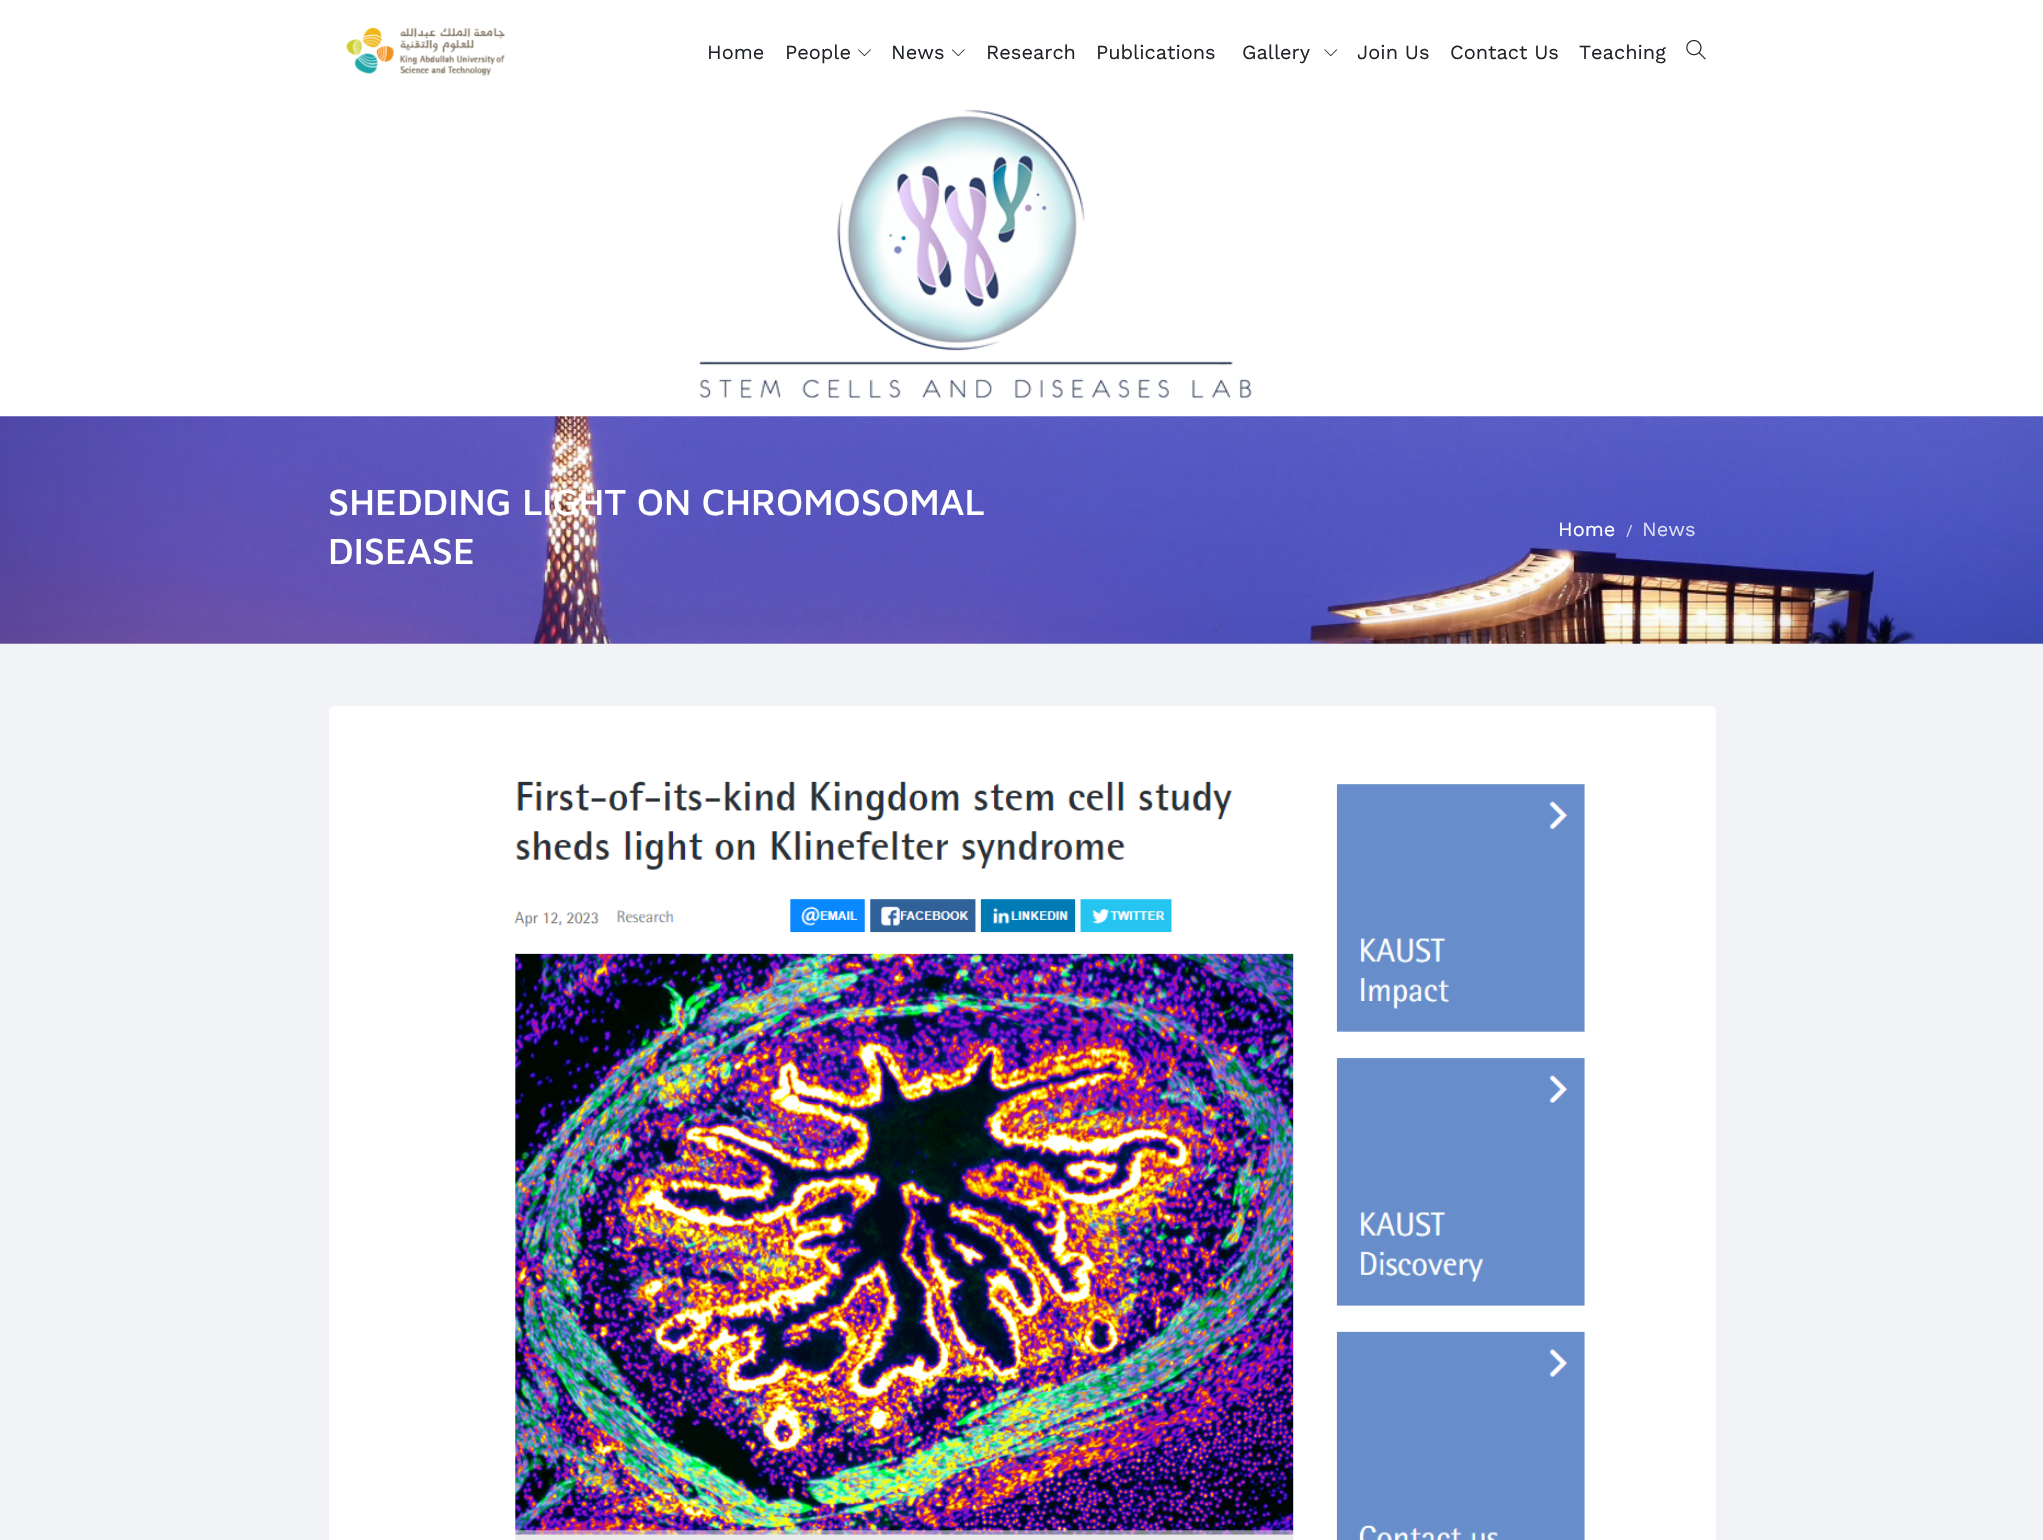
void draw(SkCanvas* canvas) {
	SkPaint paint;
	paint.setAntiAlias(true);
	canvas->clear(0xffffffff);
	canvas->drawImageRect(SkImages::DeferredFromEncodedData(SkData::MakeFromFileName("img1.png")), SkRect::MakeXYWH(346, 27, 159, 49), SkSamplingOptions());
	SkFont f1(fontMgr->matchFamilyStyle("Work Sans", SkFontStyle::Normal()), 20);
	f1.setSubpixel(true);
	paint.setColor(0xff202428);
	canvas->drawString("Home", 707, 59, f1, paint);
	canvas->drawString("People", 785, 59, f1, paint);
	canvas->drawImageRect(SkImages::DeferredFromEncodedData(SkData::MakeFromFileName("img2.png")), SkRect::MakeXYWH(858, 49, 13, 8), SkSamplingOptions());
	canvas->drawString("News", 891, 59, f1, paint);
	canvas->drawImageRect(SkImages::DeferredFromEncodedData(SkData::MakeFromFileName("img3.png")), SkRect::MakeXYWH(951, 49, 14, 8), SkSamplingOptions());
	canvas->drawString("Research", 986, 59, f1, paint);
	canvas->drawString("Publications", 1096, 59, f1, paint);
	canvas->drawString("Gallery", 1242, 59, f1, paint);
	canvas->drawImageRect(SkImages::DeferredFromEncodedData(SkData::MakeFromFileName("img4.png")), SkRect::MakeXYWH(1324, 49, 14, 8), SkSamplingOptions());
	canvas->drawString("Join Us", 1357, 59, f1, paint);
	canvas->drawString("Contact Us", 1450, 59, f1, paint);
	canvas->drawString("Teaching", 1579, 59, f1, paint);
	canvas->drawImageRect(SkImages::DeferredFromEncodedData(SkData::MakeFromFileName("img5.png")), SkRect::MakeXYWH(1686, 40, 20, 20), SkSamplingOptions());
	canvas->drawImageRect(SkImages::DeferredFromEncodedData(SkData::MakeFromFileName("img6.png")), SkRect::MakeXYWH(698, 109, 554, 290), SkSamplingOptions());
	canvas->drawImageRect(SkImages::DeferredFromEncodedData(SkData::MakeFromFileName("img7.png")), SkRect::MakeXYWH(0, 416, 2043, 228), SkSamplingOptions());
	SkFont f2(fontMgr->matchFamilyStyle("Maven Pro", SkFontStyle(500, SkFontStyle::kNormal_Width, SkFontStyle::kUpright_Slant)), 37.5);
	f2.setSubpixel(true);
	paint.setColor(0xffffffff);
	canvas->drawString("SHEDDING LIGHT ON CHROMOSOMAL", 328, 515, f2, paint);
	canvas->drawString("DISEASE", 328, 564, f2, paint);
	canvas->drawString("Home", 1558, 536, f1, paint);
	SkFont f3(fontMgr->matchFamilyStyle("Work Sans", SkFontStyle::Normal()), 15);
	f3.setSubpixel(true);
	paint.setColor(0xffdcddf3);
	canvas->drawString("/", 1626, 536, f3, paint);
	canvas->drawString("News", 1642, 536, f1, paint);
	paint.setColor(0xfff1f3f7);
	canvas->drawRect(SkRect::MakeXYWH(0, 644, 2043, 896), paint);
	paint.setColor(0xffffffff);
	canvas->drawRoundRect(SkRect::MakeXYWH(329, 706, 1387, 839), 5, 5, paint);
	canvas->drawImageRect(SkImages::DeferredFromEncodedData(SkData::MakeFromFileName("img8.png")), SkRect::MakeXYWH(514, 781, 1071, 759), SkSamplingOptions());
}
